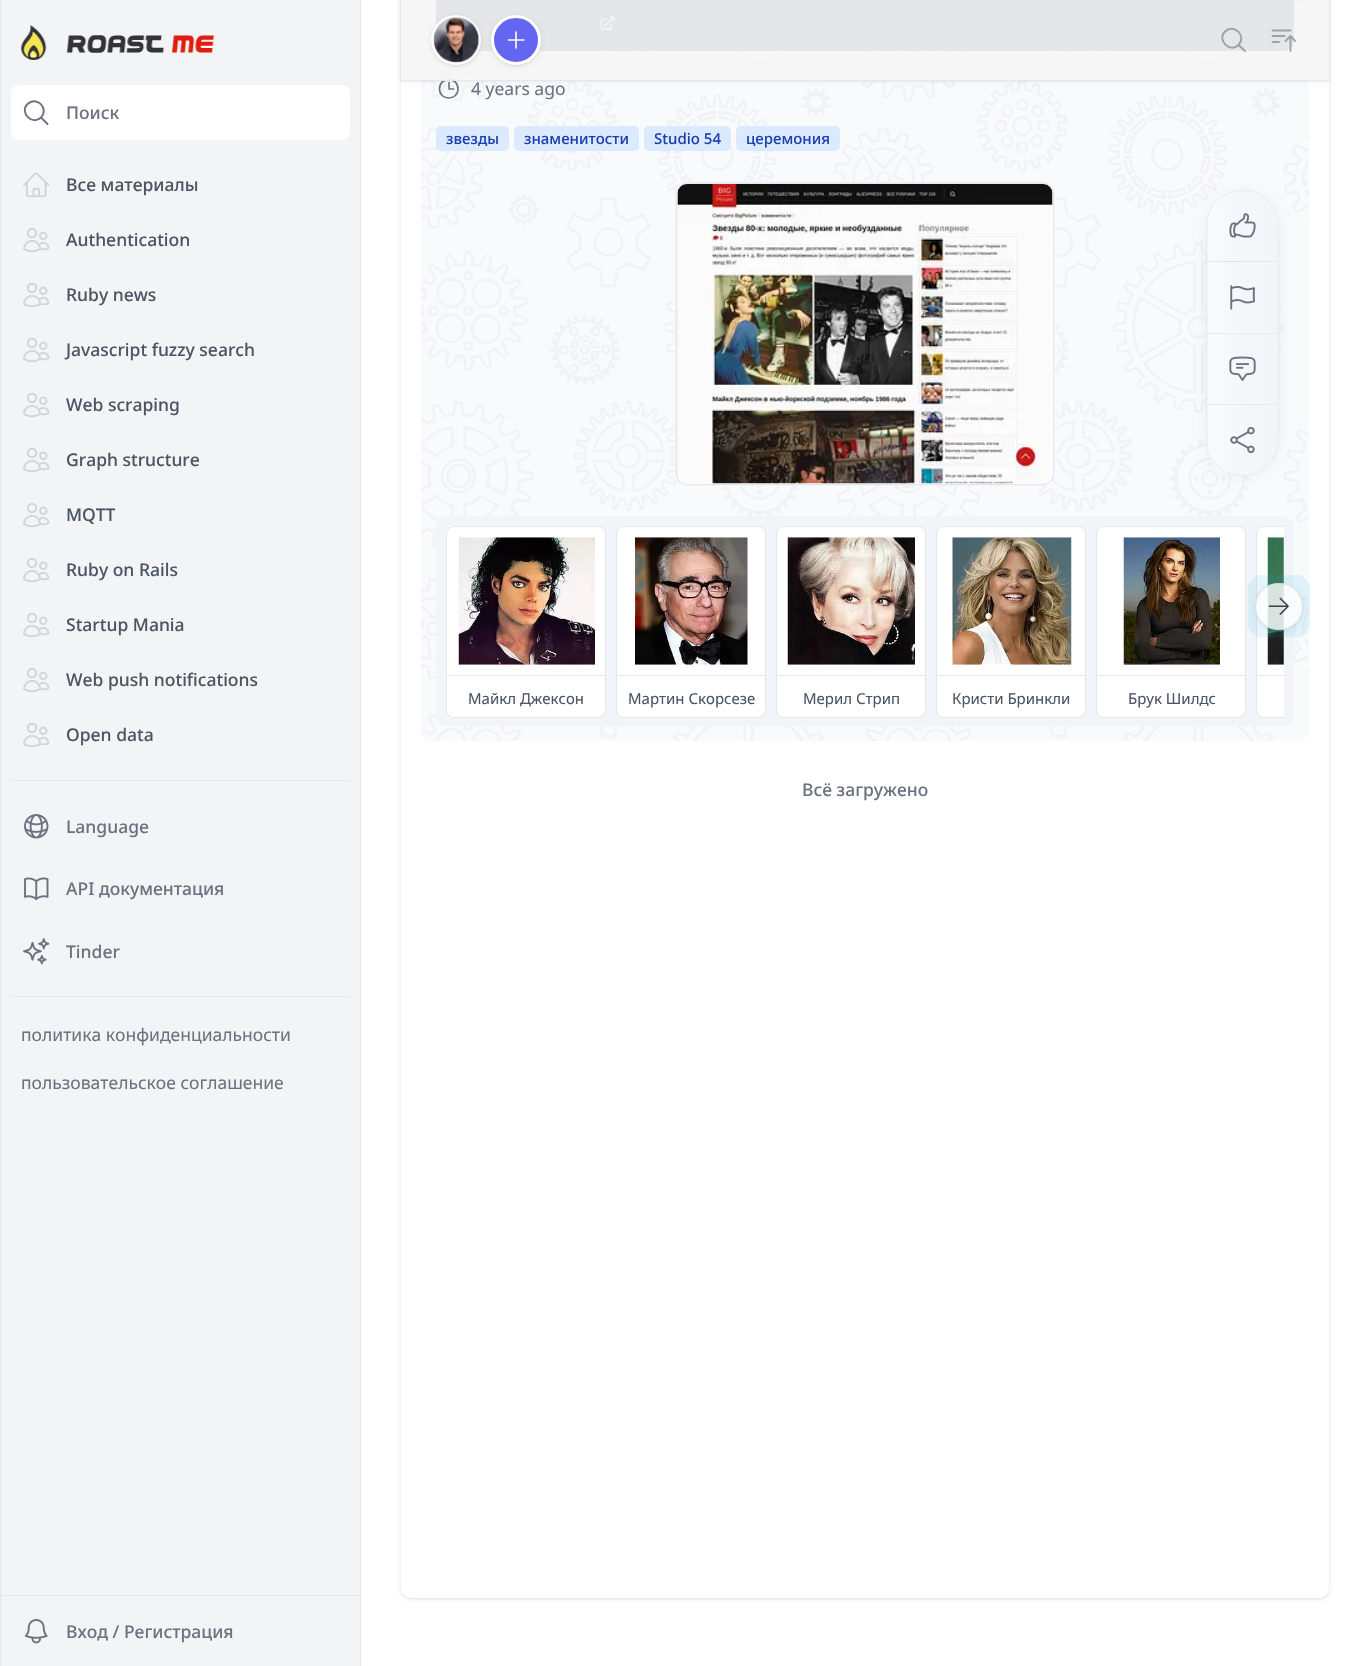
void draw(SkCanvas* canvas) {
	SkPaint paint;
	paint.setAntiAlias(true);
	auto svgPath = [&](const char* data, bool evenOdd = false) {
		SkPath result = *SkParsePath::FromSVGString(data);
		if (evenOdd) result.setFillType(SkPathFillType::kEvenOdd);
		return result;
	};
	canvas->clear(0xffffffff);
	paint.setColor(0xffe5e7eb);
	canvas->drawRect(SkRect::MakeXYWH(0, 0, 1, 1666), paint);
	paint.setColor(0xfff3f4f6);
	canvas->drawRect(SkRect::MakeXYWH(1, 0, 359, 1666), paint);
	paint.setColor(0xffe5e7eb);
	canvas->drawRect(SkRect::MakeXYWH(360, 0, 1, 1666), paint);
	canvas->drawImageRect(SkImages::DeferredFromEncodedData(SkData::MakeFromFileName("img1.png")), SkRect::MakeXYWH(21, 25, 194, 35), SkSamplingOptions());
	paint.setColor(0xffffffff);
	canvas->drawRoundRect(SkRect::MakeXYWH(11, 85, 339, 55), 8, 8, paint);
	paint.setStroke(true);
	paint.setStrokeWidth(1.9);
	paint.setStrokeCap(SkPaint::kRound_Cap);
	paint.setStrokeJoin(SkPaint::kRound_Join);
	paint.setColor(0xff6b7280);
	canvas->drawPath(svgPath("M47.5 124L41 117.5M41 117.5C49.5 108.5 36.5 95.5 27.5 104C19 112.5 32.5 126 41 117.5Z"), paint);
	SkFont f1(fontMgr->matchFamilyStyle("Noto Sans", SkFontStyle(500, SkFontStyle::kNormal_Width, SkFontStyle::kUpright_Slant)), 17.5);
	f1.setSubpixel(true);
	paint.setStroke(false);
	canvas->drawString("Поиск", 66, 119, f1, paint);
	canvas->drawImageRect(SkImages::DeferredFromEncodedData(SkData::MakeFromFileName("img2.png")), SkRect::MakeXYWH(23, 172, 27, 26), SkSamplingOptions());
	paint.setColor(0xff4b5563);
	canvas->drawString("Все материалы", 66, 191, f1, paint);
	canvas->drawImageRect(SkImages::DeferredFromEncodedData(SkData::MakeFromFileName("img3.png")), SkRect::MakeXYWH(23, 227, 27, 26), SkSamplingOptions());
	canvas->drawString("Authentication", 66, 246, f1, paint);
	canvas->drawImageRect(SkImages::DeferredFromEncodedData(SkData::MakeFromFileName("img3.png")), SkRect::MakeXYWH(23, 282, 27, 26), SkSamplingOptions());
	canvas->drawString("Ruby news", 66, 301, f1, paint);
	canvas->drawImageRect(SkImages::DeferredFromEncodedData(SkData::MakeFromFileName("img3.png")), SkRect::MakeXYWH(23, 337, 27, 26), SkSamplingOptions());
	canvas->drawString("Javascript fuzzy search", 66, 356, f1, paint);
	canvas->drawImageRect(SkImages::DeferredFromEncodedData(SkData::MakeFromFileName("img3.png")), SkRect::MakeXYWH(23, 392, 27, 26), SkSamplingOptions());
	canvas->drawString("Web scraping", 66, 411, f1, paint);
	canvas->drawImageRect(SkImages::DeferredFromEncodedData(SkData::MakeFromFileName("img3.png")), SkRect::MakeXYWH(23, 447, 27, 26), SkSamplingOptions());
	canvas->drawString("Graph structure", 66, 466, f1, paint);
	canvas->drawImageRect(SkImages::DeferredFromEncodedData(SkData::MakeFromFileName("img3.png")), SkRect::MakeXYWH(23, 502, 27, 26), SkSamplingOptions());
	canvas->drawString("MQTT", 66, 521, f1, paint);
	canvas->drawImageRect(SkImages::DeferredFromEncodedData(SkData::MakeFromFileName("img3.png")), SkRect::MakeXYWH(23, 557, 27, 26), SkSamplingOptions());
	canvas->drawString("Ruby on Rails", 66, 576, f1, paint);
	canvas->drawImageRect(SkImages::DeferredFromEncodedData(SkData::MakeFromFileName("img3.png")), SkRect::MakeXYWH(23, 612, 27, 26), SkSamplingOptions());
	canvas->drawString("Startup Mania", 66, 631, f1, paint);
	canvas->drawImageRect(SkImages::DeferredFromEncodedData(SkData::MakeFromFileName("img3.png")), SkRect::MakeXYWH(23, 667, 27, 26), SkSamplingOptions());
	canvas->drawString("Web push notifications", 66, 686, f1, paint);
	canvas->drawImageRect(SkImages::DeferredFromEncodedData(SkData::MakeFromFileName("img3.png")), SkRect::MakeXYWH(23, 722, 27, 26), SkSamplingOptions());
	canvas->drawString("Open data", 66, 741, f1, paint);
	paint.setColor(0xffe5e7eb);
	canvas->drawRect(SkRect::MakeXYWH(11, 780, 339, 1), paint);
	canvas->drawImageRect(SkImages::DeferredFromEncodedData(SkData::MakeFromFileName("img4.png")), SkRect::MakeXYWH(24, 814, 25, 25), SkSamplingOptions());
	paint.setColor(0xff6b7280);
	canvas->drawString("Language", 66, 833, f1, paint);
	canvas->drawImageRect(SkImages::DeferredFromEncodedData(SkData::MakeFromFileName("img5.png")), SkRect::MakeXYWH(24, 877, 25, 24), SkSamplingOptions());
	canvas->drawString("API документация", 66, 895, f1, paint);
	canvas->drawImageRect(SkImages::DeferredFromEncodedData(SkData::MakeFromFileName("img6.png")), SkRect::MakeXYWH(23, 938, 27, 27), SkSamplingOptions());
	canvas->drawString("Tinder", 66, 958, f1, paint);
	paint.setColor(0xffe5e7eb);
	canvas->drawRect(SkRect::MakeXYWH(11, 996, 339, 1), paint);
	SkFont f2(fontMgr->matchFamilyStyle("Noto Sans", SkFontStyle::Normal()), 17.5);
	f2.setSubpixel(true);
	paint.setColor(0xff6b7280);
	canvas->drawString("политика конфиденциальности", 21, 1041, f2, paint);
	canvas->drawString("пользовательское соглашение", 21, 1089, f2, paint);
	paint.setColor(0xffe5e7eb);
	canvas->drawRect(SkRect::MakeXYWH(1, 1595, 359, 1), paint);
	canvas->drawImageRect(SkImages::DeferredFromEncodedData(SkData::MakeFromFileName("img7.png")), SkRect::MakeXYWH(25, 1619, 23, 25), SkSamplingOptions());
	paint.setColor(0xff6b7280);
	canvas->drawString("Вход / Регистрация", 66, 1638, f1, paint);
	paint.setColor(0x1a000000);
	paint.setMaskFilter(SkMaskFilter::MakeBlur(kNormal_SkBlurStyle, 1));
	canvas->drawRoundRect(SkRect::MakeXYWH(403, -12, 925, 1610), 9, 9, paint);
	paint.setMaskFilter(nullptr);
	paint.setMaskFilter(SkMaskFilter::MakeBlur(kNormal_SkBlurStyle, 2));
	canvas->drawRoundRect(SkRect::MakeXYWH(401, -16, 928, 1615), 10, 10, paint);
	paint.setMaskFilter(nullptr);
	paint.setColor(0xffffffff);
	canvas->drawPath(svgPath("M401-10H1329V1588C1329 1593.5 1324.5 1598 1319 1598H411C405.5 1598 401 1593.5 401 1588Z"), paint);
	paint.setColor(0xfff8fafc);
	canvas->drawRoundRect(SkRect::MakeXYWH(421, -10, 888, 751), 10, 10, paint);
	canvas->drawImageRect(SkImages::DeferredFromEncodedData(SkData::MakeFromFileName("img9.png")), SkRect::MakeXYWH(421, 0, 888, 741), SkSamplingOptions());
	paint.setColor(0xff475569);
	canvas->drawRoundRect(SkRect::MakeXYWH(436, -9, 858, 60), 10, 10, paint);
	canvas->drawImageRect(SkImages::DeferredFromEncodedData(SkData::MakeFromFileName("img10.png")), SkRect::MakeXYWH(600, 16, 15, 14), SkSamplingOptions());
	paint.setStroke(true);
	paint.setStrokeWidth(1.6);
	paint.setColor(0xff6b7280);
	canvas->drawPath(svgPath("M449 82.5V89H453.5M458 89C458 101 439.5 101 439.5 89C439.5 76.5 458 76.5 458 89Z"), paint);
	canvas->save();
	canvas->clipPath(svgPath("M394 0H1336V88H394ZM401 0H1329V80H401Z", true), true);
	paint.setStroke(false);
	paint.setColor(0x1a000000);
	paint.setMaskFilter(SkMaskFilter::MakeBlur(kNormal_SkBlurStyle, 2));
	canvas->drawRect(SkRect::MakeXYWH(401, 1, 928, 80), paint);
	paint.setMaskFilter(nullptr);
	canvas->restore();
	paint.setStroke(true);
	paint.setStrokeWidth(1);
	paint.setStrokeCap(SkPaint::kButt_Cap);
	paint.setStrokeJoin(SkPaint::kMiter_Join);
	paint.setColor(0xffe5e7eb);
	canvas->drawRect(SkRect::MakeXYWH(400.5, -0.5, 929, 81), paint);
	paint.setStroke(false);
	paint.setColor(0xe6f5f5f5);
	canvas->drawRect(SkRect::MakeXYWH(401, 0, 928, 80), paint);
	paint.setColor(0x1a000000);
	paint.setMaskFilter(SkMaskFilter::MakeBlur(kNormal_SkBlurStyle, 1));
	canvas->drawRoundRect(SkRect::MakeXYWH(433, 18, 47, 47), 23.5, 23.5, paint);
	paint.setMaskFilter(nullptr);
	paint.setMaskFilter(SkMaskFilter::MakeBlur(kNormal_SkBlurStyle, 2));
	canvas->drawRoundRect(SkRect::MakeXYWH(431, 16, 50, 50), 25, 25, paint);
	paint.setMaskFilter(nullptr);
	paint.setStroke(true);
	paint.setStrokeWidth(3);
	paint.setColor(0xffffffff);
	canvas->drawCircle(456, 40, 23.5, paint);
	canvas->drawImageRect(SkImages::DeferredFromEncodedData(SkData::MakeFromFileName("img8.png")), SkRect::MakeXYWH(433, 16, 47, 47), SkSamplingOptions());
	paint.setStroke(false);
	paint.setColor(0x1a000000);
	paint.setMaskFilter(SkMaskFilter::MakeBlur(kNormal_SkBlurStyle, 1));
	canvas->drawRoundRect(SkRect::MakeXYWH(493, 18, 47, 47), 23.5, 23.5, paint);
	paint.setMaskFilter(nullptr);
	paint.setMaskFilter(SkMaskFilter::MakeBlur(kNormal_SkBlurStyle, 2));
	canvas->drawRoundRect(SkRect::MakeXYWH(491, 16, 50, 50), 25, 25, paint);
	paint.setMaskFilter(nullptr);
	paint.setColor(0xff6366f1);
	canvas->drawCircle(516, 40, 23.5, paint);
	paint.setStroke(true);
	paint.setColor(0xffffffff);
	canvas->drawCircle(516, 40, 23.5, paint);
	paint.setStrokeWidth(1.6);
	paint.setStrokeCap(SkPaint::kRound_Cap);
	paint.setStrokeJoin(SkPaint::kRound_Join);
	canvas->drawPath(svgPath("M516 32V48M524 40H508.5"), paint);
	paint.setStrokeWidth(1.9);
	paint.setColor(0xff9ca3af);
	canvas->drawPath(svgPath("M1245 51L1238.5 45M1238.5 45C1247 36 1234 23 1225 31.5C1216.5 40 1230 53.5 1238.5 45Z"), paint);
	canvas->drawPath(svgPath("M1272.5 30.5H1290.5M1272.5 36H1284.5M1272.5 42H1279M1285.5 41L1290.5 36M1290.5 36L1295 41M1290.5 36V51"), paint);
	paint.setStroke(false);
	paint.setColor(0xff6b7280);
	canvas->drawString("4 years ago", 471, 95, f2, paint);
	paint.setColor(0xffdbeafe);
	canvas->drawRoundRect(SkRect::MakeXYWH(436, 126, 73, 25), 5, 5, paint);
	SkFont f3(fontMgr->matchFamilyStyle("Noto Sans", SkFontStyle(500, SkFontStyle::kNormal_Width, SkFontStyle::kUpright_Slant)), 15);
	f3.setSubpixel(true);
	paint.setColor(0xff1e40af);
	canvas->drawString("звезды", 446, 144, f3, paint);
	paint.setColor(0xffdbeafe);
	canvas->drawRoundRect(SkRect::MakeXYWH(514, 126, 125, 25), 5, 5, paint);
	paint.setColor(0xff1e40af);
	canvas->drawString("знаменитости", 524, 144, f3, paint);
	paint.setColor(0xffdbeafe);
	canvas->drawRoundRect(SkRect::MakeXYWH(644, 126, 87, 25), 5, 5, paint);
	paint.setColor(0xff1e40af);
	canvas->drawString("Studio 54", 654, 144, f3, paint);
	paint.setColor(0xffdbeafe);
	canvas->drawRoundRect(SkRect::MakeXYWH(736, 126, 104, 25), 5, 5, paint);
	paint.setColor(0xff1e40af);
	canvas->drawString("церемония", 746, 144, f3, paint);
	paint.setStroke(true);
	paint.setStrokeWidth(3);
	paint.setStrokeCap(SkPaint::kButt_Cap);
	paint.setStrokeJoin(SkPaint::kMiter_Join);
	paint.setColor(0xfff1f5f9);
	canvas->drawRoundRect(SkRect::MakeXYWH(676.5, 182.5, 377, 302), 11.5, 11.5, paint);
	paint.setStroke(false);
	paint.setColor(0xffffffff);
	canvas->drawRoundRect(SkRect::MakeXYWH(678, 184, 375, 300), 10, 10, paint);
	canvas->drawImageRect(SkImages::DeferredFromEncodedData(SkData::MakeFromFileName("img11.png")), SkRect::MakeXYWH(677, 183, 376, 301), SkSamplingOptions());
	paint.setStroke(true);
	paint.setStrokeWidth(1);
	paint.setColor(0xffe5e7eb);
	canvas->drawRoundRect(SkRect::MakeXYWH(676.5, 183.5, 377, 301), 10.5, 10.5, paint);
	paint.setStroke(false);
	paint.setColor(0x33000000);
	paint.setMaskFilter(SkMaskFilter::MakeBlur(kNormal_SkBlurStyle, 10));
	canvas->drawRoundRect(SkRect::MakeXYWH(1216, 201, 53, 265), 26.5, 26.5, paint);
	paint.setMaskFilter(nullptr);
	canvas->save();
	canvas->clipPath(svgPath("M1242.5 190C1262.5 190 1279 206.5 1279 226.5V263H1206V226.5C1206 206.5 1222.5 190 1242.5 190Z"), true);
	{
		const SkColor colors[] = {0xfff8fafc, 0xfff1f5f9};
		const float stops[] = {0, 1};
		const SkPoint ends[] = {{1138, 226}, {1208, 226}};
		paint.setShader(SkGradientShader::MakeLinear(ends, colors, stops, 2, SkTileMode::kClamp));
		paint.setAlpha(255);
	}
	canvas->drawRect(SkRect::MakeXYWH(1206, 214, 2, 49), paint);
	{
		const SkColor colors[] = {0xfff8fafc, 0xfff1f5f9};
		const float stops[] = {0, 1};
		const SkPoint ends[] = {{1208, 226}, {1278, 226}};
		paint.setShader(SkGradientShader::MakeLinear(ends, colors, stops, 2, SkTileMode::kClamp));
		paint.setAlpha(255);
	}
	canvas->drawRect(SkRect::MakeXYWH(1208, 190, 70, 71), paint);
	{
		const SkColor colors[] = {0xfff8fafc, 0xfff1f5f9};
		const float stops[] = {0, 1};
		const SkPoint ends[] = {{1278, 226}, {1348, 226}};
		paint.setShader(SkGradientShader::MakeLinear(ends, colors, stops, 2, SkTileMode::kClamp));
		paint.setAlpha(255);
	}
	canvas->drawRect(SkRect::MakeXYWH(1278, 218, 1, 45), paint);
	canvas->restore();
	paint.setStroke(true);
	paint.setShader(nullptr);
	paint.setColor(0xcce5e7eb);
	canvas->drawPath(svgPath("M1242.5 190.5C1262.5 190.5 1278.5 206.5 1278.5 226.5V262.5H1206.5V226.5C1206.5 206.5 1222.5 190.5 1242.5 190.5Z"), paint);
	canvas->drawImageRect(SkImages::DeferredFromEncodedData(SkData::MakeFromFileName("img12.png")), SkRect::MakeXYWH(1229, 213, 27, 25), SkSamplingOptions());
	paint.setStroke(false);
	{
		const SkColor colors[] = {0xfff8fafc, 0xfff1f5f9};
		const float stops[] = {0, 1};
		const SkPoint ends[] = {{1138, 298}, {1208, 298}};
		paint.setShader(SkGradientShader::MakeLinear(ends, colors, stops, 2, SkTileMode::kClamp));
		paint.setAlpha(255);
	}
	canvas->drawRect(SkRect::MakeXYWH(1206, 261, 2, 73), paint);
	{
		const SkColor colors[] = {0xfff8fafc, 0xfff1f5f9};
		const float stops[] = {0, 1};
		const SkPoint ends[] = {{1208, 298}, {1278, 298}};
		paint.setShader(SkGradientShader::MakeLinear(ends, colors, stops, 2, SkTileMode::kClamp));
		paint.setAlpha(255);
	}
	canvas->drawRect(SkRect::MakeXYWH(1208, 262, 70, 71), paint);
	{
		const SkColor colors[] = {0xfff8fafc, 0xfff1f5f9};
		const float stops[] = {0, 1};
		const SkPoint ends[] = {{1278, 298}, {1348, 298}};
		paint.setShader(SkGradientShader::MakeLinear(ends, colors, stops, 2, SkTileMode::kClamp));
		paint.setAlpha(255);
	}
	canvas->drawRect(SkRect::MakeXYWH(1278, 261, 1, 73), paint);
	paint.setStroke(true);
	paint.setShader(nullptr);
	paint.setColor(0xcce5e7eb);
	canvas->drawRect(SkRect::MakeXYWH(1206.5, 261.5, 72, 72), paint);
	canvas->drawImageRect(SkImages::DeferredFromEncodedData(SkData::MakeFromFileName("img13.png")), SkRect::MakeXYWH(1230, 285, 25, 25), SkSamplingOptions());
	paint.setStroke(false);
	{
		const SkColor colors[] = {0xfff8fafc, 0xfff1f5f9};
		const float stops[] = {0, 1};
		const SkPoint ends[] = {{1138, 369}, {1208, 369}};
		paint.setShader(SkGradientShader::MakeLinear(ends, colors, stops, 2, SkTileMode::kClamp));
		paint.setAlpha(255);
	}
	canvas->drawRect(SkRect::MakeXYWH(1206, 333, 2, 72), paint);
	{
		const SkColor colors[] = {0xfff8fafc, 0xfff1f5f9};
		const float stops[] = {0, 1};
		const SkPoint ends[] = {{1208, 369}, {1278, 369}};
		paint.setShader(SkGradientShader::MakeLinear(ends, colors, stops, 2, SkTileMode::kClamp));
		paint.setAlpha(255);
	}
	canvas->drawRect(SkRect::MakeXYWH(1208, 333, 70, 71), paint);
	{
		const SkColor colors[] = {0xfff8fafc, 0xfff1f5f9};
		const float stops[] = {0, 1};
		const SkPoint ends[] = {{1278, 369}, {1348, 369}};
		paint.setShader(SkGradientShader::MakeLinear(ends, colors, stops, 2, SkTileMode::kClamp));
		paint.setAlpha(255);
	}
	canvas->drawRect(SkRect::MakeXYWH(1278, 333, 1, 72), paint);
	paint.setStroke(true);
	paint.setShader(nullptr);
	paint.setColor(0xcce5e7eb);
	canvas->drawRect(SkRect::MakeXYWH(1206.5, 333.5, 72, 71), paint);
	canvas->drawImageRect(SkImages::DeferredFromEncodedData(SkData::MakeFromFileName("img14.png")), SkRect::MakeXYWH(1229, 356, 27, 25), SkSamplingOptions());
	canvas->save();
	canvas->clipPath(svgPath("M1206 404H1279V440C1279 460 1263 476 1243 476H1242C1222 476 1206 460 1206 440Z"), true);
	paint.setStroke(false);
	{
		const SkColor colors[] = {0xfff8fafc, 0xfff1f5f9};
		const float stops[] = {0, 1};
		const SkPoint ends[] = {{1138, 440}, {1208, 440}};
		paint.setShader(SkGradientShader::MakeLinear(ends, colors, stops, 2, SkTileMode::kClamp));
		paint.setAlpha(255);
	}
	canvas->drawRect(SkRect::MakeXYWH(1206, 404, 2, 48), paint);
	{
		const SkColor colors[] = {0xfff8fafc, 0xfff1f5f9};
		const float stops[] = {0, 1};
		const SkPoint ends[] = {{1208, 440}, {1278, 440}};
		paint.setShader(SkGradientShader::MakeLinear(ends, colors, stops, 2, SkTileMode::kClamp));
		paint.setAlpha(255);
	}
	canvas->drawRect(SkRect::MakeXYWH(1208, 404, 70, 72), paint);
	{
		const SkColor colors[] = {0xfff8fafc, 0xfff1f5f9};
		const float stops[] = {0, 1};
		const SkPoint ends[] = {{1278, 440}, {1348, 440}};
		paint.setShader(SkGradientShader::MakeLinear(ends, colors, stops, 2, SkTileMode::kClamp));
		paint.setAlpha(255);
	}
	canvas->drawRect(SkRect::MakeXYWH(1278, 404, 1, 44), paint);
	canvas->restore();
	paint.setStroke(true);
	paint.setShader(nullptr);
	paint.setColor(0xcce5e7eb);
	canvas->drawPath(svgPath("M1206.5 404.5H1278.5V440C1278.5 459.5 1262.5 475.5 1243 475.5H1242C1222.5 475.5 1206.5 459.5 1206.5 440Z"), paint);
	canvas->drawImageRect(SkImages::DeferredFromEncodedData(SkData::MakeFromFileName("img15.png")), SkRect::MakeXYWH(1230, 426, 25, 28), SkSamplingOptions());
	paint.setStroke(false);
	paint.setColor(0xfff1f5f9);
	canvas->drawRoundRect(SkRect::MakeXYWH(436, 516, 858, 210), 10, 10, paint);
	paint.setColor(0xffffffff);
	canvas->drawPath(svgPath("M1264 526H1284V676H1256V534C1256 529.5 1259.5 526 1264 526Z"), paint);
	canvas->save();
	canvas->clipRect(SkRect::MakeXYWH(446, 519, 838, 205));
	paint.setStroke(true);
	paint.setColor(0xffe5e7eb);
	canvas->drawPath(svgPath("M1264 526.5H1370C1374 526.5 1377.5 530 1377.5 534V675.5H1256.5V534C1256.5 530 1260 526.5 1264 526.5Z"), paint);
	canvas->restore();
	canvas->drawImageRect(SkImages::DeferredFromEncodedData(SkData::MakeFromFileName("img22.png")), SkRect::MakeXYWH(1267, 537, 17, 128), SkSamplingOptions());
	canvas->save();
	canvas->clipPath(svgPath("M1310 575V637.5H1247.5V575Z"), true);
	paint.setStrokeWidth(25);
	paint.setColor(0x1a0ea5e9);
	canvas->drawPath(svgPath("M1304 606C1304 639 1254 639 1254 606C1254 573.5 1304 573.5 1304 606Z"), paint);
	canvas->restore();
	paint.setStrokeWidth(12.5);
	paint.setColor(0xe62563eb);
	paint.setPathEffect(SkDashPathEffect::Make({{0, 156.07f}}, 0));
	canvas->drawPath(svgPath("M1304 606C1304 639 1254 639 1254 606C1254 573.5 1304 573.5 1304 606Z"), paint);
	paint.setPathEffect(nullptr);
	canvas->save();
	canvas->clipPath(svgPath("M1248 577H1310V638H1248ZM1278.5 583H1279.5C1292.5 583 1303 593.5 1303 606.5C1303 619.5 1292.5 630 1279.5 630H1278.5C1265.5 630 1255 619.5 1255 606.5C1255 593.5 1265.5 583 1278.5 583Z", true), true);
	paint.setStroke(false);
	paint.setColor(0x1a000000);
	paint.setMaskFilter(SkMaskFilter::MakeBlur(kNormal_SkBlurStyle, 2));
	canvas->drawRoundRect(SkRect::MakeXYWH(1255, 584, 48, 47), 23.5, 23.5, paint);
	paint.setMaskFilter(nullptr);
	canvas->restore();
	paint.setColor(0xccffffff);
	canvas->drawRoundRect(SkRect::MakeXYWH(1255, 583, 48, 47), 23.5, 23.5, paint);
	paint.setStroke(true);
	paint.setStrokeWidth(1);
	paint.setColor(0xccd1d5db);
	canvas->drawRoundRect(SkRect::MakeXYWH(1255.5, 583.5, 47, 46), 23, 23, paint);
	canvas->drawImageRect(SkImages::DeferredFromEncodedData(SkData::MakeFromFileName("img16.png")), SkRect::MakeXYWH(1268, 597, 21, 18), SkSamplingOptions());
	paint.setStroke(false);
	paint.setColor(0xffffffff);
	canvas->drawPath(svgPath("M454 526.5H598C602 526.5 605.5 530 605.5 534V675.5H446.5V534C446.5 530 450 526.5 454 526.5Z"), paint);
	paint.setStroke(true);
	paint.setColor(0xffe5e7eb);
	canvas->drawPath(svgPath("M454 526.5H598C602 526.5 605.5 530 605.5 534V675.5H446.5V534C446.5 530 450 526.5 454 526.5Z"), paint);
	canvas->drawImageRect(SkImages::DeferredFromEncodedData(SkData::MakeFromFileName("img17.png")), SkRect::MakeXYWH(458, 537, 137, 128), SkSamplingOptions());
	paint.setStroke(false);
	paint.setColor(0xffffffff);
	canvas->drawPath(svgPath("M446.5 675.5H605.5V710C605.5 714 602 717.5 598 717.5H454C450 717.5 446.5 714 446.5 710Z"), paint);
	paint.setStroke(true);
	paint.setColor(0xffe5e7eb);
	canvas->drawPath(svgPath("M446.5 675.5H605.5V710C605.5 714 602 717.5 598 717.5H454C450 717.5 446.5 714 446.5 710Z"), paint);
	SkFont f4(fontMgr->matchFamilyStyle("Noto Sans", SkFontStyle::Normal()), 15);
	f4.setSubpixel(true);
	paint.setStroke(false);
	paint.setColor(0xff4b5563);
	canvas->drawString("Майкл Джексон", 468, 704, f4, paint);
	paint.setColor(0xffffffff);
	canvas->drawPath(svgPath("M624 526.5H758C762 526.5 765.5 530 765.5 534V675.5H616.5V534C616.5 530 620 526.5 624 526.5Z"), paint);
	paint.setStroke(true);
	paint.setColor(0xffe5e7eb);
	canvas->drawPath(svgPath("M624 526.5H758C762 526.5 765.5 530 765.5 534V675.5H616.5V534C616.5 530 620 526.5 624 526.5Z"), paint);
	canvas->drawImageRect(SkImages::DeferredFromEncodedData(SkData::MakeFromFileName("img18.png")), SkRect::MakeXYWH(635, 537, 113, 128), SkSamplingOptions());
	paint.setStroke(false);
	paint.setColor(0xffffffff);
	canvas->drawPath(svgPath("M616.5 675.5H765.5V710C765.5 714 762 717.5 758 717.5H624C620 717.5 616.5 714 616.5 710Z"), paint);
	paint.setStroke(true);
	paint.setColor(0xffe5e7eb);
	canvas->drawPath(svgPath("M616.5 675.5H765.5V710C765.5 714 762 717.5 758 717.5H624C620 717.5 616.5 714 616.5 710Z"), paint);
	paint.setStroke(false);
	paint.setColor(0xff4b5563);
	canvas->drawString("Мартин Скорсезе", 628, 704, f4, paint);
	paint.setColor(0xffffffff);
	canvas->drawPath(svgPath("M784 526.5H918C922 526.5 925.5 530 925.5 534V675.5H776.5V534C776.5 530 780 526.5 784 526.5Z"), paint);
	paint.setStroke(true);
	paint.setColor(0xffe5e7eb);
	canvas->drawPath(svgPath("M784 526.5H918C922 526.5 925.5 530 925.5 534V675.5H776.5V534C776.5 530 780 526.5 784 526.5Z"), paint);
	canvas->drawImageRect(SkImages::DeferredFromEncodedData(SkData::MakeFromFileName("img19.png")), SkRect::MakeXYWH(787, 537, 128, 128), SkSamplingOptions());
	paint.setStroke(false);
	paint.setColor(0xffffffff);
	canvas->drawPath(svgPath("M776.5 675.5H925.5V710C925.5 714 922 717.5 918 717.5H784C780 717.5 776.5 714 776.5 710Z"), paint);
	paint.setStroke(true);
	paint.setColor(0xffe5e7eb);
	canvas->drawPath(svgPath("M776.5 675.5H925.5V710C925.5 714 922 717.5 918 717.5H784C780 717.5 776.5 714 776.5 710Z"), paint);
	paint.setStroke(false);
	paint.setColor(0xff4b5563);
	canvas->drawString("Мерил Стрип", 803, 704, f4, paint);
	paint.setColor(0xffffffff);
	canvas->drawPath(svgPath("M944 526.5H1078C1082 526.5 1085.5 530 1085.5 534V675.5H936.5V534C936.5 530 940 526.5 944 526.5Z"), paint);
	paint.setStroke(true);
	paint.setColor(0xffe5e7eb);
	canvas->drawPath(svgPath("M944 526.5H1078C1082 526.5 1085.5 530 1085.5 534V675.5H936.5V534C936.5 530 940 526.5 944 526.5Z"), paint);
	canvas->drawImageRect(SkImages::DeferredFromEncodedData(SkData::MakeFromFileName("img20.png")), SkRect::MakeXYWH(952, 537, 120, 128), SkSamplingOptions());
	paint.setStroke(false);
	paint.setColor(0xffffffff);
	canvas->drawPath(svgPath("M936.5 675.5H1085.5V710C1085.5 714 1082 717.5 1078 717.5H944C940 717.5 936.5 714 936.5 710Z"), paint);
	paint.setStroke(true);
	paint.setColor(0xffe5e7eb);
	canvas->drawPath(svgPath("M936.5 675.5H1085.5V710C1085.5 714 1082 717.5 1078 717.5H944C940 717.5 936.5 714 936.5 710Z"), paint);
	paint.setStroke(false);
	paint.setColor(0xff4b5563);
	canvas->drawString("Кристи Бринкли", 952, 704, f4, paint);
	paint.setColor(0xffffffff);
	canvas->drawPath(svgPath("M1104 526.5H1238C1242 526.5 1245.5 530 1245.5 534V675.5H1096.5V534C1096.5 530 1100 526.5 1104 526.5Z"), paint);
	paint.setStroke(true);
	paint.setColor(0xffe5e7eb);
	canvas->drawPath(svgPath("M1104 526.5H1238C1242 526.5 1245.5 530 1245.5 534V675.5H1096.5V534C1096.5 530 1100 526.5 1104 526.5Z"), paint);
	canvas->drawImageRect(SkImages::DeferredFromEncodedData(SkData::MakeFromFileName("img21.png")), SkRect::MakeXYWH(1123, 537, 97, 128), SkSamplingOptions());
	paint.setStroke(false);
	paint.setColor(0xffffffff);
	canvas->drawPath(svgPath("M1096.5 675.5H1245.5V710C1245.5 714 1242 717.5 1238 717.5H1104C1100 717.5 1096.5 714 1096.5 710Z"), paint);
	paint.setStroke(true);
	paint.setColor(0xffe5e7eb);
	canvas->drawPath(svgPath("M1096.5 675.5H1245.5V710C1245.5 714 1242 717.5 1238 717.5H1104C1100 717.5 1096.5 714 1096.5 710Z"), paint);
	paint.setStroke(false);
	paint.setColor(0xff4b5563);
	canvas->drawString("Брук Шилдс", 1128, 704, f4, paint);
	paint.setColor(0xffffffff);
	canvas->drawPath(svgPath("M1256 675H1284V718H1264C1259.5 718 1256 714.5 1256 710Z"), paint);
	canvas->save();
	canvas->clipRect(SkRect::MakeXYWH(446, 519, 838, 205));
	paint.setStroke(true);
	paint.setColor(0xffe5e7eb);
	canvas->drawPath(svgPath("M1256.5 675.5H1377.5V710C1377.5 714 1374 717.5 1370 717.5H1264C1260 717.5 1256.5 714 1256.5 710Z"), paint);
	canvas->restore();
	paint.setStroke(false);
	paint.setColor(0xff6b7280);
	canvas->drawString("Всё загружено", 802, 796, f1, paint);
}
